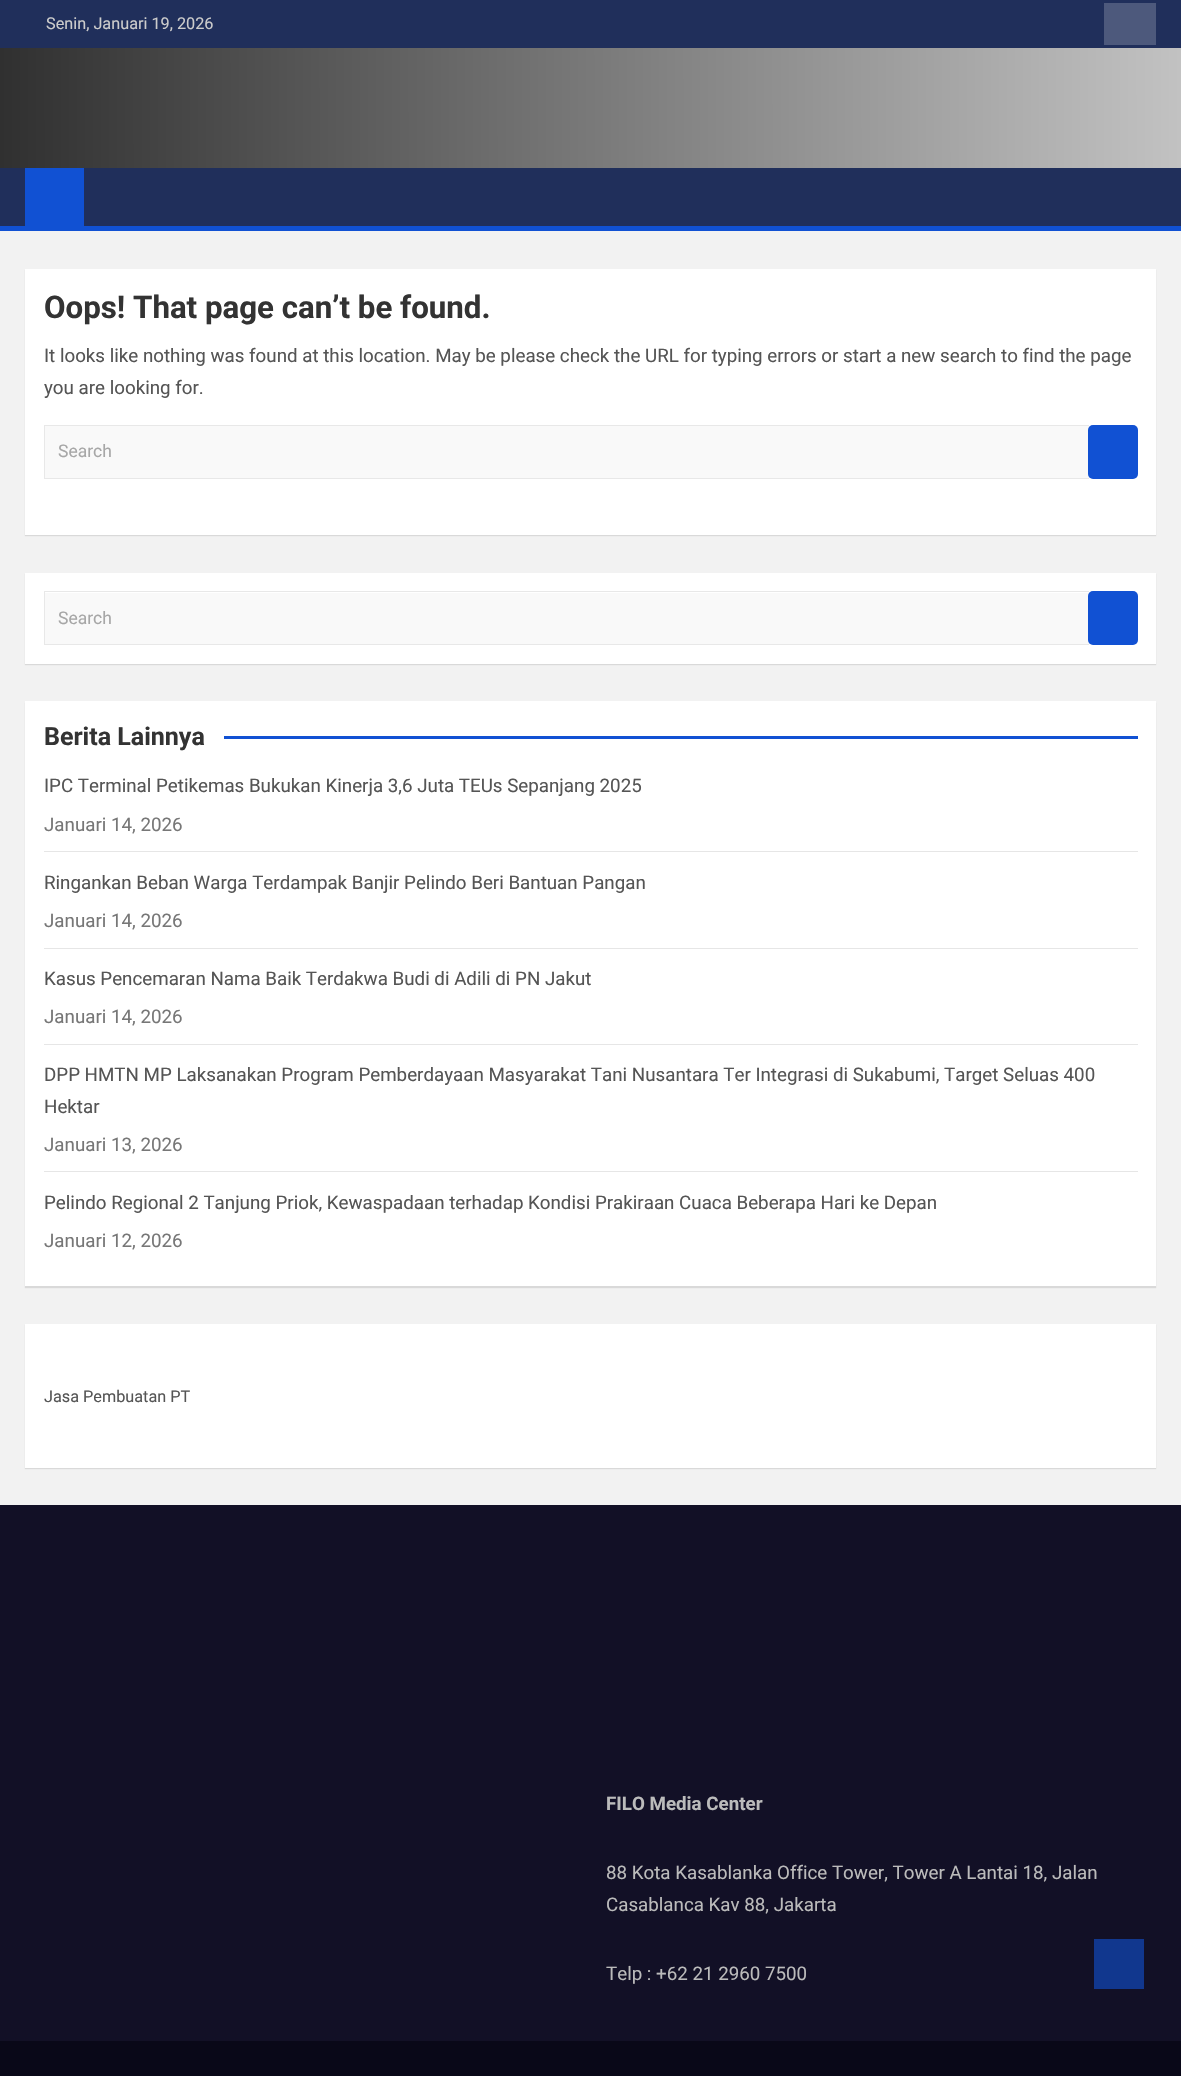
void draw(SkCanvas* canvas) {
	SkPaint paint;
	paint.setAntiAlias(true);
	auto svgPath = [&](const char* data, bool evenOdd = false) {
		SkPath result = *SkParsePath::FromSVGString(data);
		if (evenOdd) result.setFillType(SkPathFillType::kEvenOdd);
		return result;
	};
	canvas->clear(0xfff2f2f2);
	paint.setColor(0xff202f5b);
	canvas->drawRect(SkRect::MakeXYWH(0, 0, 1181, 48), paint);
	SkFont f1(fontMgr->matchFamilyStyle("Roboto", SkFontStyle::Normal()), 16.25);
	f1.setSubpixel(true);
	paint.setColor(0xffcccccc);
	canvas->drawString("Senin, Januari 19, 2026", 46, 29, f1, paint);
	paint.setColor(0xff4d597c);
	canvas->drawRect(SkRect::MakeXYWH(1104, 3, 52, 42), paint);
	{
		const SkColor colors[] = {0xff303030, 0xffc2c2c2};
		const float stops[] = {0, 1};
		const SkPoint ends[] = {{0, 108}, {1181, 107}};
		paint.setShader(SkGradientShader::MakeLinear(ends, colors, stops, 2, SkTileMode::kClamp));
		paint.setAlpha(255);
	}
	canvas->drawRect(SkRect::MakeXYWH(0, 48, 1181, 120), paint);
	paint.setShader(nullptr);
	paint.setColor(0xff202f5b);
	canvas->drawRect(SkRect::MakeXYWH(0, 168, 1181, 58), paint);
	paint.setColor(0xff1151d3);
	canvas->drawRect(SkRect::MakeXYWH(25, 168, 59, 58), paint);
	canvas->drawRect(SkRect::MakeXYWH(0, 226, 1181, 5), paint);
	paint.setColor(0x1a000000);
	paint.setMaskFilter(SkMaskFilter::MakeBlur(kNormal_SkBlurStyle, 0.5));
	canvas->drawRect(SkRect::MakeXYWH(25, 270, 1131, 266), paint);
	paint.setMaskFilter(nullptr);
	paint.setColor(0xffffffff);
	canvas->drawRect(SkRect::MakeXYWH(25, 269, 1131, 266), paint);
	SkFont f2(fontMgr->matchFamilyStyle("Roboto", SkFontStyle::Bold()), 31.25);
	f2.setSubpixel(true);
	paint.setColor(0xff333333);
	canvas->drawString("Oops! That page can’t be found.", 44, 318, f2, paint);
	SkFont f3(fontMgr->matchFamilyStyle("Roboto", SkFontStyle::Normal()), 18.75);
	f3.setSubpixel(true);
	paint.setColor(0xff555555);
	canvas->drawString("It looks like nothing was found at this location. May be please check the URL for typing errors or start a new search to find the page", 44, 362, f3, paint);
	canvas->drawString("you are looking for.", 44, 394, f3, paint);
	paint.setColor(0xfff9f9f9);
	canvas->drawRect(SkRect::MakeXYWH(45, 426, 1044, 52), paint);
	paint.setColor(0xffe8e8e8);
	canvas->drawPath(svgPath("M44 425H1089V426H45Z"), paint);
	canvas->drawPath(svgPath("M1089 479H44L45 478H1089Z"), paint);
	paint.setColor(0x17000000);
	canvas->drawPath(svgPath("M44 479V425L45 426V478Z"), paint);
	SkFont f4(fontMgr->matchFamilyStyle("Roboto", SkFontStyle::Normal()), 17.5);
	f4.setSubpixel(true);
	paint.setColor(0xffa7a7a7);
	canvas->drawString("Search", 58, 457, f4, paint);
	paint.setColor(0xff1151d3);
	canvas->drawRoundRect(SkRect::MakeXYWH(1088, 425, 50, 54), 5, 5, paint);
	paint.setColor(0x1a000000);
	paint.setMaskFilter(SkMaskFilter::MakeBlur(kNormal_SkBlurStyle, 0.5));
	canvas->drawRect(SkRect::MakeXYWH(25, 574, 1131, 91), paint);
	paint.setMaskFilter(nullptr);
	paint.setColor(0xffffffff);
	canvas->drawRect(SkRect::MakeXYWH(25, 573, 1131, 91), paint);
	paint.setColor(0xfff9f9f9);
	canvas->drawRect(SkRect::MakeXYWH(45, 593, 1044, 51), paint);
	paint.setColor(0xffe8e8e8);
	canvas->drawPath(svgPath("M44 591H1089V592H45Z"), paint);
	canvas->drawPath(svgPath("M1089 645H44L45 644H1089Z"), paint);
	paint.setColor(0x17000000);
	canvas->drawPath(svgPath("M44 645V591L45 592V644Z"), paint);
	paint.setColor(0xffa7a7a7);
	canvas->drawString("Search", 58, 624, f4, paint);
	paint.setColor(0xff1151d3);
	canvas->drawRoundRect(SkRect::MakeXYWH(1088, 591, 50, 54), 5, 5, paint);
	paint.setColor(0x1a000000);
	paint.setMaskFilter(SkMaskFilter::MakeBlur(kNormal_SkBlurStyle, 0.5));
	canvas->drawRect(SkRect::MakeXYWH(25, 703, 1131, 585), paint);
	paint.setMaskFilter(nullptr);
	paint.setColor(0xffffffff);
	canvas->drawRect(SkRect::MakeXYWH(25, 701, 1131, 585), paint);
	SkFont f5(fontMgr->matchFamilyStyle("Roboto", SkFontStyle::Bold()), 25);
	f5.setSubpixel(true);
	paint.setColor(0xff333333);
	canvas->drawString("Berita Lainnya", 44, 745, f5, paint);
	paint.setColor(0xff1151d3);
	canvas->drawRect(SkRect::MakeXYWH(224, 736, 914, 3), paint);
	paint.setColor(0xffe6e6e6);
	canvas->drawRect(SkRect::MakeXYWH(44, 851, 1094, 1), paint);
	paint.setColor(0xff555555);
	canvas->drawString("IPC Terminal Petikemas Bukukan Kinerja 3,6 Juta TEUs Sepanjang 2025", 44, 792, f3, paint);
	paint.setColor(0xff777777);
	canvas->drawString("Januari 14, 2026", 44, 831, f3, paint);
	paint.setColor(0xffe6e6e6);
	canvas->drawRect(SkRect::MakeXYWH(44, 948, 1094, 1), paint);
	paint.setColor(0xff555555);
	canvas->drawString("Ringankan Beban Warga Terdampak Banjir Pelindo Beri Bantuan Pangan", 44, 889, f3, paint);
	paint.setColor(0xff777777);
	canvas->drawString("Januari 14, 2026", 44, 927, f3, paint);
	paint.setColor(0xffe6e6e6);
	canvas->drawRect(SkRect::MakeXYWH(44, 1044, 1094, 1), paint);
	paint.setColor(0xff555555);
	canvas->drawString("Kasus Pencemaran Nama Baik Terdakwa Budi di Adili di PN Jakut", 44, 985, f3, paint);
	paint.setColor(0xff777777);
	canvas->drawString("Januari 14, 2026", 44, 1023, f3, paint);
	paint.setColor(0xffe6e6e6);
	canvas->drawRect(SkRect::MakeXYWH(44, 1171, 1094, 1), paint);
	paint.setColor(0xff555555);
	canvas->drawString("DPP HMTN MP Laksanakan Program Pemberdayaan Masyarakat Tani Nusantara Ter Integrasi di Sukabumi, Target Seluas 400", 44, 1081, f3, paint);
	canvas->drawString("Hektar", 44, 1113, f3, paint);
	paint.setColor(0xff777777);
	canvas->drawString("Januari 13, 2026", 44, 1151, f3, paint);
	paint.setColor(0xff555555);
	canvas->drawString("Pelindo Regional 2 Tanjung Priok, Kewaspadaan terhadap Kondisi Prakiraan Cuaca Beberapa Hari ke Depan", 44, 1209, f3, paint);
	paint.setColor(0xff777777);
	canvas->drawString("Januari 12, 2026", 44, 1247, f3, paint);
	paint.setColor(0x1a000000);
	paint.setMaskFilter(SkMaskFilter::MakeBlur(kNormal_SkBlurStyle, 0.5));
	canvas->drawRect(SkRect::MakeXYWH(25, 1325, 1131, 144), paint);
	paint.setMaskFilter(nullptr);
	paint.setColor(0xffffffff);
	canvas->drawRect(SkRect::MakeXYWH(25, 1324, 1131, 144), paint);
	paint.setColor(0xff555555);
	canvas->drawString("Jasa Pembuatan PT", 44, 1402, f1, paint);
	paint.setColor(0xff121026);
	canvas->drawRect(SkRect::MakeXYWH(0, 1505, 1181, 536), paint);
	SkFont f6(fontMgr->matchFamilyStyle("Roboto", SkFontStyle::Bold()), 18.75);
	f6.setSubpixel(true);
	paint.setColor(0xffbbbbbb);
	canvas->drawString("FILO Media Center", 606, 1810, f6, paint);
	canvas->drawString("88 Kota Kasablanka Office Tower, Tower A Lantai 18, Jalan", 606, 1879, f3, paint);
	canvas->drawString("Casablanca Kav 88, Jakarta", 606, 1911, f3, paint);
	canvas->drawString("Telp : +62 21 2960 7500", 606, 1980, f3, paint);
	paint.setColor(0xff090818);
	canvas->drawRect(SkRect::MakeXYWH(0, 2041, 1181, 35), paint);
	paint.setColor(0xff11378e);
	canvas->drawRect(SkRect::MakeXYWH(1094, 1939, 50, 50), paint);
}
